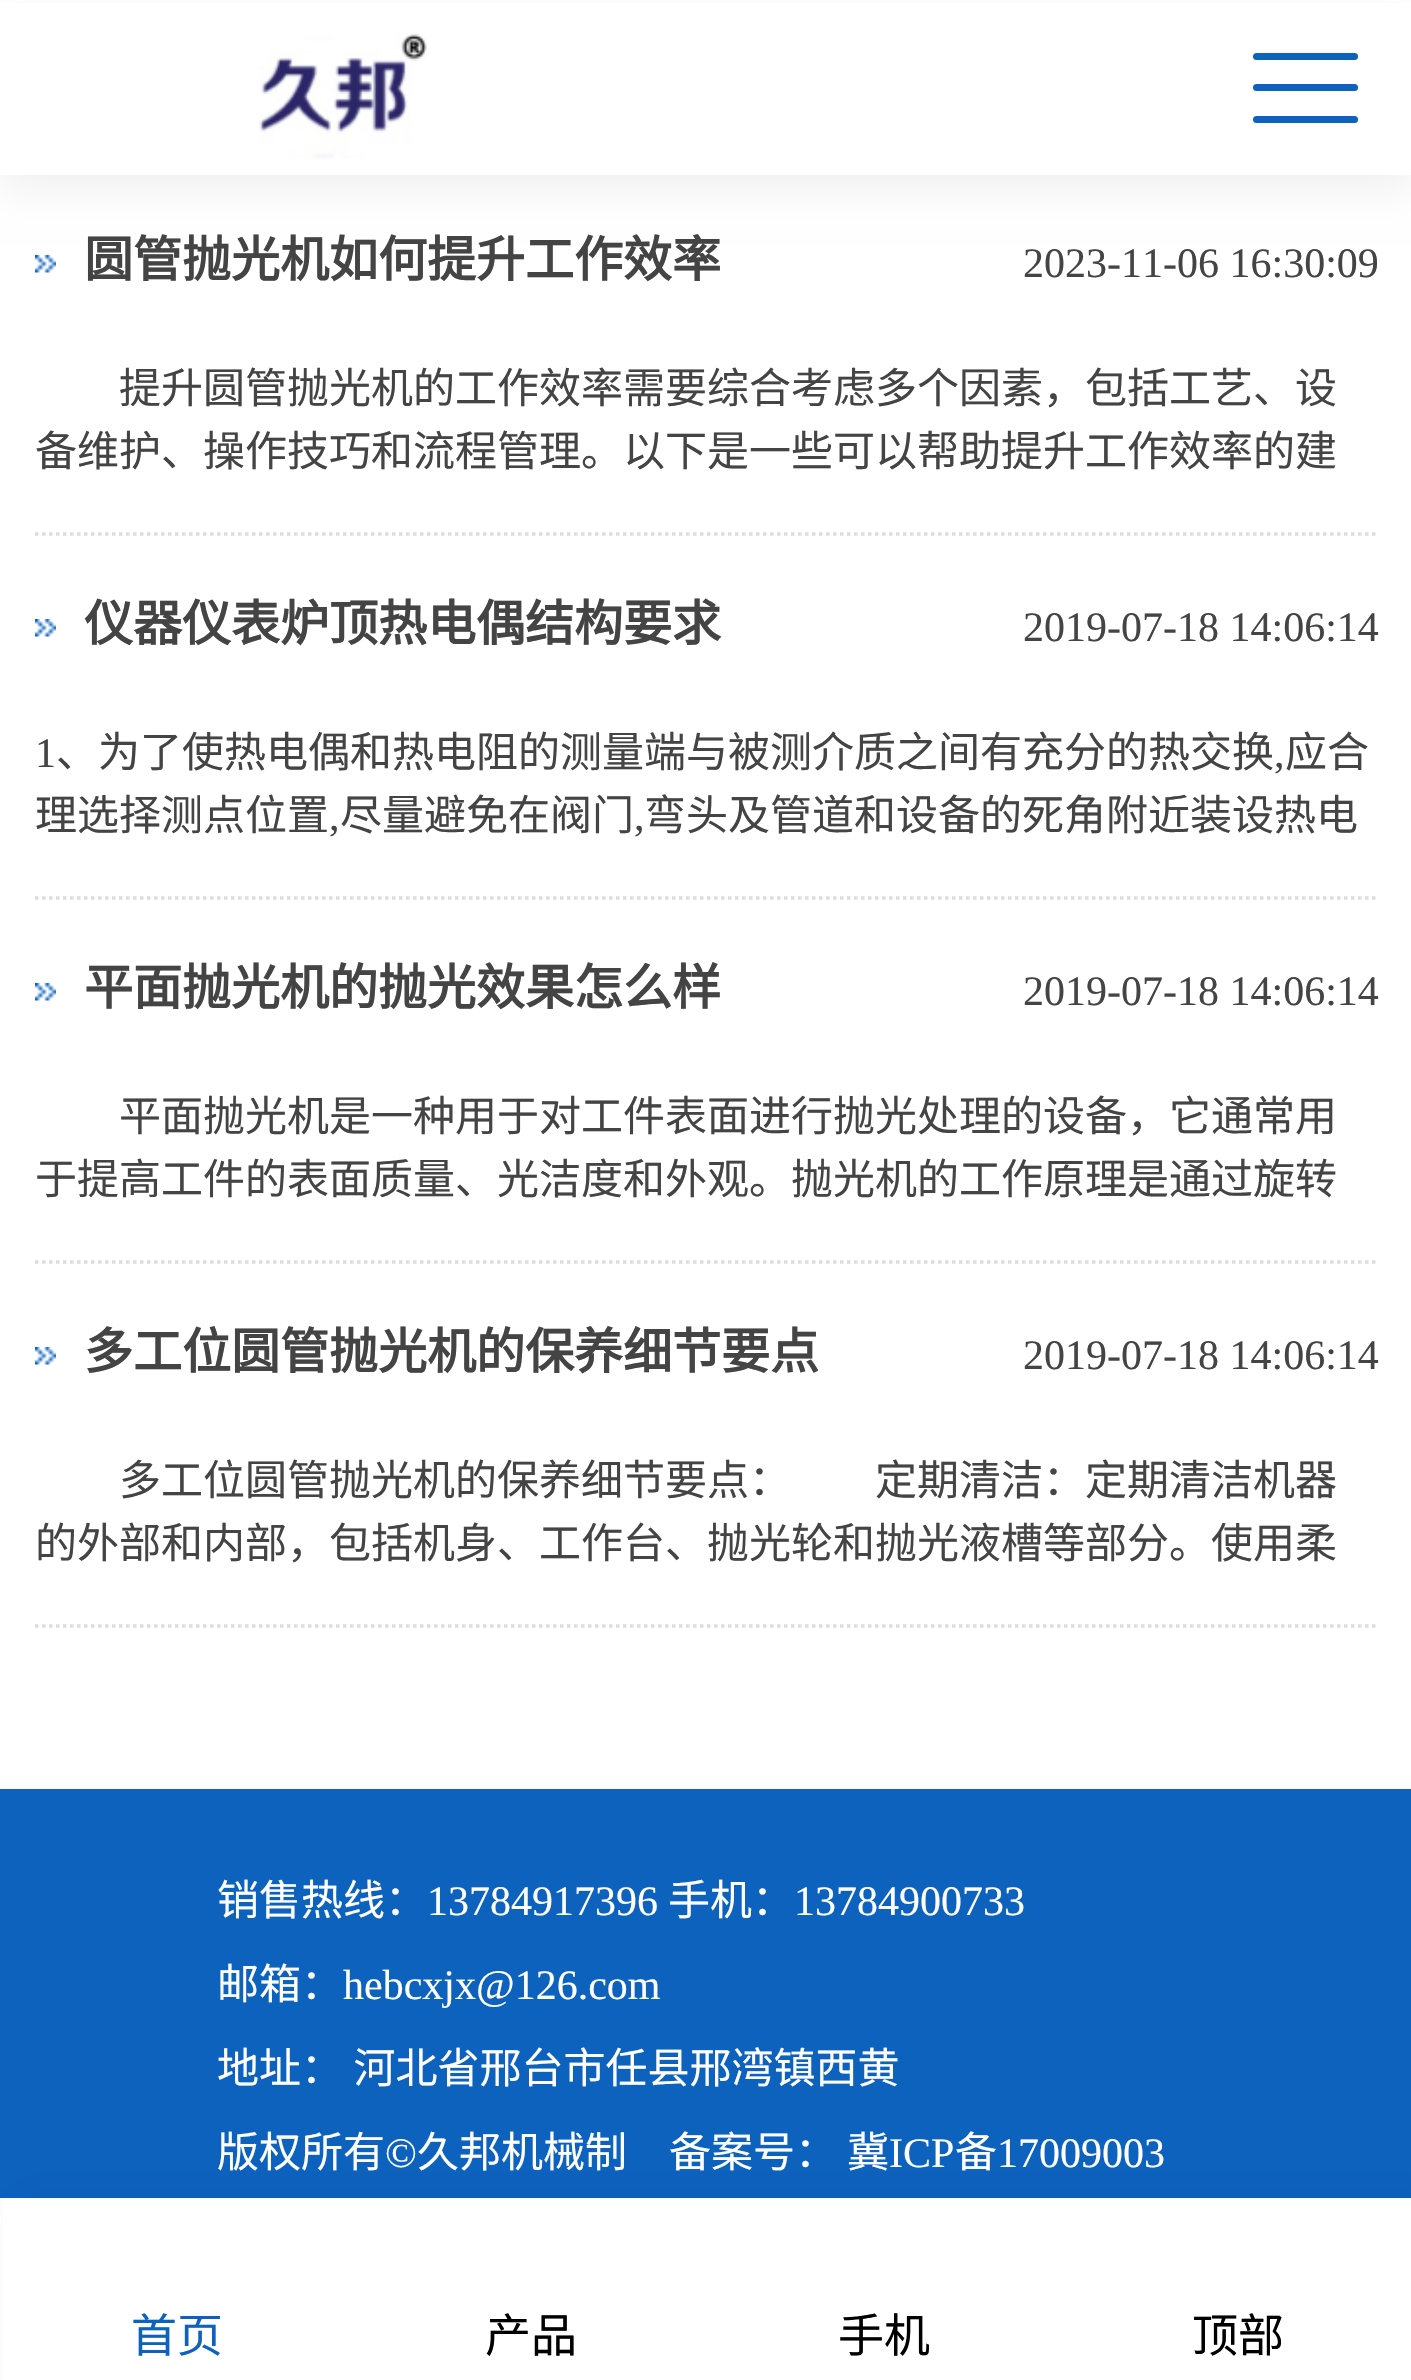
void draw(SkCanvas* canvas) {
	SkPaint paint;
	paint.setAntiAlias(true);
	auto spacedText = [&](const char* s, float x, float y, const SkFont& font, const SkPaint& ink, float letter, float word) {
		std::vector<SkGlyphID> glyphs(font.countText(s, strlen(s), SkTextEncoding::kUTF8));
		std::vector<float> xs(glyphs.size());
		font.textToGlyphs(s, strlen(s), SkTextEncoding::kUTF8, glyphs);
		font.getXPos(glyphs, xs, x);
		float extra = 0;
		for (size_t i = 0; i < glyphs.size(); i++) {
			xs[i] += extra;
			extra += letter + word * (glyphs[i] == font.unicharToGlyph(' '));
		}
		canvas->drawTextBlob(SkTextBlob::MakeFromPosHGlyphs(glyphs, xs, y, font), 0, 0, ink);
	};
	auto svgPath = [&](const char* data, bool evenOdd = false) {
		SkPath result = *SkParsePath::FromSVGString(data);
		if (evenOdd) result.setFillType(SkPathFillType::kEvenOdd);
		return result;
	};
	canvas->clear(0xffffffff);
	paint.setColor(0x0d000000);
	paint.setMaskFilter(SkMaskFilter::MakeBlur(kNormal_SkBlurStyle, 17.5));
	canvas->drawRect(SkRect::MakeXYWH(0, 18, 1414, 175), paint);
	paint.setMaskFilter(nullptr);
	paint.setColor(0xffffffff);
	canvas->drawRect(SkRect::MakeXYWH(0, 3, 1411, 172), paint);
	canvas->drawImageRect(SkImages::DeferredFromEncodedData(SkData::MakeFromFileName("img1.png")), SkRect::MakeXYWH(259, 34, 168, 125), SkSamplingOptions());
	paint.setColor(0xff0d62be);
	canvas->drawRoundRect(SkRect::MakeXYWH(1253, 53, 105, 7), 3.5, 3.5, paint);
	canvas->drawRoundRect(SkRect::MakeXYWH(1253, 84, 105, 7), 3.5, 3.5, paint);
	canvas->drawRoundRect(SkRect::MakeXYWH(1253, 116, 105, 7), 3.5, 3.5, paint);
	paint.setStroke(true);
	paint.setStrokeWidth(3.5);
	paint.setColor(0xffdddddd);
	paint.setPathEffect(SkDashPathEffect::Make({{3.5f, 3.5f}}, 0));
	canvas->drawPath(svgPath("M35 534H1379"), paint);
	paint.setPathEffect(nullptr);
	canvas->drawImageRect(SkImages::DeferredFromEncodedData(SkData::MakeFromFileName("img2.png")), SkRect::MakeXYWH(35, 255, 21, 18), SkSamplingOptions());
	SkFont f1(fontMgr->matchFamilyStyle("Noto Sans CJK SC", SkFontStyle::Bold()), 49);
	f1.setSubpixel(true);
	paint.setStroke(false);
	paint.setColor(0xff444444);
	canvas->drawString("圆管抛光机如何提升工作效率", 84, 277, f1, paint);
	SkFont f2(fontMgr->matchFamilyStyle("Liberation Serif", SkFontStyle::Normal()), 42);
	f2.setSubpixel(true);
	canvas->drawString("2023-11-06 16:30:09", 1023, 277, f2, paint);
	SkFont f3(fontMgr->matchFamilyStyle("Noto Sans CJK SC", SkFontStyle::Normal()), 42);
	f3.setSubpixel(true);
	canvas->drawString("提升圆管抛光机的工作效率需要综合考虑多个因素，包括工艺、设", 119, 403, f3, paint);
	canvas->drawString("备维护、操作技巧和流程管理。以下是一些可以帮助提升工作效率的建", 35, 466, f3, paint);
	paint.setStroke(true);
	paint.setColor(0xffdddddd);
	paint.setPathEffect(SkDashPathEffect::Make({{3.5f, 3.5f}}, 0));
	canvas->drawPath(svgPath("M35 898H1379"), paint);
	paint.setPathEffect(nullptr);
	canvas->drawImageRect(SkImages::DeferredFromEncodedData(SkData::MakeFromFileName("img2.png")), SkRect::MakeXYWH(35, 619, 21, 18), SkSamplingOptions());
	paint.setStroke(false);
	paint.setColor(0xff444444);
	canvas->drawString("仪器仪表炉顶热电偶结构要求", 84, 641, f1, paint);
	canvas->drawString("2019-07-18 14:06:14", 1023, 641, f2, paint);
	canvas->drawString("1", 35, 767, f2, paint);
	canvas->drawString("、为了使热电偶和热电阻的测量端与被测介质之间有充分的热交换", 56, 767, f3, paint);
	canvas->drawString(",", 1274, 767, f2, paint);
	canvas->drawString("应合", 1285, 767, f3, paint);
	canvas->drawString("理选择测点位置", 35, 830, f3, paint);
	canvas->drawString(",", 329, 830, f2, paint);
	canvas->drawString("尽量避免在阀门", 340, 830, f3, paint);
	canvas->drawString(",", 634, 830, f2, paint);
	canvas->drawString("弯头及管道和设备的死角附近装设热电", 644, 830, f3, paint);
	paint.setStroke(true);
	paint.setColor(0xffdddddd);
	paint.setPathEffect(SkDashPathEffect::Make({{3.5f, 3.5f}}, 0));
	canvas->drawPath(svgPath("M35 1262H1379"), paint);
	paint.setPathEffect(nullptr);
	canvas->drawImageRect(SkImages::DeferredFromEncodedData(SkData::MakeFromFileName("img2.png")), SkRect::MakeXYWH(35, 983, 21, 18), SkSamplingOptions());
	paint.setStroke(false);
	paint.setColor(0xff444444);
	canvas->drawString("平面抛光机的抛光效果怎么样", 84, 1005, f1, paint);
	canvas->drawString("2019-07-18 14:06:14", 1023, 1005, f2, paint);
	canvas->drawString("平面抛光机是一种用于对工件表面进行抛光处理的设备，它通常用", 119, 1131, f3, paint);
	canvas->drawString("于提高工件的表面质量、光洁度和外观。抛光机的工作原理是通过旋转", 35, 1194, f3, paint);
	paint.setStroke(true);
	paint.setColor(0xffdddddd);
	paint.setPathEffect(SkDashPathEffect::Make({{3.5f, 3.5f}}, 0));
	canvas->drawPath(svgPath("M35 1626H1379"), paint);
	paint.setPathEffect(nullptr);
	canvas->drawImageRect(SkImages::DeferredFromEncodedData(SkData::MakeFromFileName("img2.png")), SkRect::MakeXYWH(35, 1347, 21, 18), SkSamplingOptions());
	paint.setStroke(false);
	paint.setColor(0xff444444);
	canvas->drawString("多工位圆管抛光机的保养细节要点", 84, 1369, f1, paint);
	canvas->drawString("2019-07-18 14:06:14", 1023, 1369, f2, paint);
	canvas->drawString("多工位圆管抛光机的保养细节要点：　　定期清洁：定期清洁机器", 119, 1495, f3, paint);
	canvas->drawString("的外部和内部，包括机身、工作台、抛光轮和抛光液槽等部分。使用柔", 35, 1558, f3, paint);
	paint.setColor(0xff0d62be);
	canvas->drawRect(SkRect::MakeXYWH(0, 1789, 1411, 409), paint);
	paint.setColor(0xffffffff);
	canvas->drawString("销售热线：", 217, 1915, f3, paint);
	canvas->drawString("13784917396", 427, 1915, f2, paint);
	canvas->drawString("手机：", 668, 1915, f3, paint);
	canvas->drawString("13784900733", 794, 1915, f2, paint);
	canvas->drawString("邮箱：", 217, 1999, f3, paint);
	canvas->drawString("hebcxjx@126.com", 343, 1999, f2, paint);
	spacedText("地址： 河北省邢台市任县邢湾镇西黄", 217, 2083, f3, paint, 0, 1);
	canvas->drawString("版权所有", 217, 2167, f3, paint);
	canvas->drawString("©", 385, 2167, f2, paint);
	canvas->drawString("久邦机械制　备案号：", 417, 2167, f3, paint);
	canvas->drawString("冀", 847, 2167, f3, paint);
	canvas->drawString("ICP", 889, 2167, f2, paint);
	canvas->drawString("备", 955, 2167, f3, paint);
	canvas->drawString("17009003", 997, 2167, f2, paint);
	paint.setColor(0x0d000000);
	paint.setMaskFilter(SkMaskFilter::MakeBlur(kNormal_SkBlurStyle, 17.5));
	canvas->drawRect(SkRect::MakeXYWH(18, 2198, 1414, 182), paint);
	paint.setMaskFilter(nullptr);
	paint.setColor(0xffffffff);
	canvas->drawRect(SkRect::MakeXYWH(3, 2198, 1408, 182), paint);
	SkFont f4(fontMgr->matchFamilyStyle("Noto Sans CJK SC", SkFontStyle::Normal()), 46);
	f4.setSubpixel(true);
	paint.setColor(0xff0d62be);
	canvas->drawString("首页", 131, 2352, f4, paint);
	paint.setColor(0xff000000);
	canvas->drawString("产品", 485, 2352, f4, paint);
	canvas->drawString("手机", 838, 2352, f4, paint);
	canvas->drawString("顶部", 1192, 2352, f4, paint);
}
